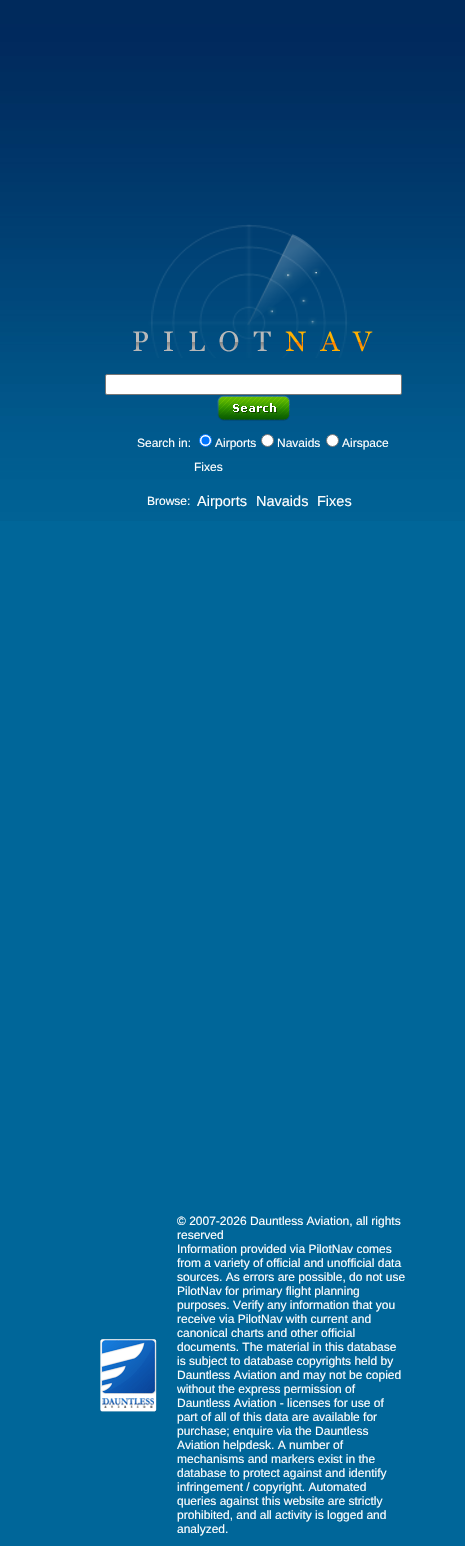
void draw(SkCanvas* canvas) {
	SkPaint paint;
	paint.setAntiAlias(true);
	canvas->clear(0xff006699);
	canvas->drawImageRect(SkImages::DeferredFromEncodedData(SkData::MakeFromFileName("img1.png")), SkRect::MakeXYWH(0, 0, 465, 521), SkSamplingOptions());
	canvas->drawImageRect(SkImages::DeferredFromEncodedData(SkData::MakeFromFileName("img2.png")), SkRect::MakeXYWH(133, 224, 240, 134), SkSamplingOptions());
	paint.setColor(0xffffffff);
	canvas->drawRoundRect(SkRect::MakeXYWH(105.5, 374.5, 296, 20), 1.5, 1.5, paint);
	paint.setStroke(true);
	paint.setStrokeWidth(1);
	paint.setColor(0xff767676);
	canvas->drawRoundRect(SkRect::MakeXYWH(105.5, 374.5, 296, 20), 1.5, 1.5, paint);
	canvas->drawImageRect(SkImages::DeferredFromEncodedData(SkData::MakeFromFileName("img3.png")), SkRect::MakeXYWH(217, 395, 73, 26), SkSamplingOptions());
	SkFont f1(fontMgr->matchFamilyStyle("Liberation Sans", SkFontStyle::Normal()), 12);
	f1.setSubpixel(true);
	paint.setStroke(false);
	paint.setColor(0xffffffff);
	canvas->drawString("Search in:", 137, 447, f1, paint);
	canvas->drawCircle(205.5, 440.5, 6, paint);
	paint.setStroke(true);
	paint.setColor(0xff0075ff);
	canvas->drawCircle(205.5, 440.5, 6, paint);
	paint.setStroke(false);
	canvas->drawCircle(205.5, 440.5, 4, paint);
	paint.setColor(0xffffffff);
	canvas->drawString("Airports", 215, 447, f1, paint);
	canvas->drawCircle(267.5, 440.5, 6, paint);
	paint.setStroke(true);
	paint.setColor(0xff767676);
	canvas->drawCircle(267.5, 440.5, 6, paint);
	paint.setStroke(false);
	paint.setColor(0xffffffff);
	canvas->drawString("Navaids", 277, 447, f1, paint);
	canvas->drawCircle(332.5, 440.5, 6, paint);
	paint.setStroke(true);
	paint.setColor(0xff767676);
	canvas->drawCircle(332.5, 440.5, 6, paint);
	paint.setStroke(false);
	paint.setColor(0xffffffff);
	canvas->drawString("Airspace", 342, 447, f1, paint);
	canvas->drawString("Fixes", 194, 471, f1, paint);
	canvas->drawString("Browse:", 147, 505, f1, paint);
	SkFont f2(fontMgr->matchFamilyStyle("Liberation Sans", SkFontStyle::Normal()), 14.5);
	f2.setSubpixel(true);
	canvas->drawString("Airports", 197, 506, f2, paint);
	canvas->drawString("Navaids", 256, 506, f2, paint);
	canvas->drawString("Fixes", 317, 506, f2, paint);
	canvas->drawImageRect(SkImages::DeferredFromEncodedData(SkData::MakeFromFileName("img4.png")), SkRect::MakeXYWH(100, 1339, 57, 73), SkSamplingOptions());
	canvas->drawString("© 2007-2026 Dauntless Aviation, all rights", 177, 1225, f1, paint);
	canvas->drawString("reserved", 177, 1239, f1, paint);
	canvas->drawString("Information provided via PilotNav comes", 177, 1253, f1, paint);
	canvas->drawString("from a variety of official and unofficial data", 177, 1267, f1, paint);
	canvas->drawString("sources. As errors are possible, do not use", 177, 1281, f1, paint);
	canvas->drawString("PilotNav for primary flight planning", 177, 1295, f1, paint);
	canvas->drawString("purposes. Verify any information that you", 177, 1309, f1, paint);
	canvas->drawString("receive via PilotNav with current and", 177, 1323, f1, paint);
	canvas->drawString("canonical charts and other official", 177, 1337, f1, paint);
	canvas->drawString("documents. The material in this database", 177, 1351, f1, paint);
	canvas->drawString("is subject to database copyrights held by", 177, 1365, f1, paint);
	canvas->drawString("Dauntless Aviation and may not be copied", 177, 1379, f1, paint);
	canvas->drawString("without the express permission of", 177, 1393, f1, paint);
	canvas->drawString("Dauntless Aviation - licenses for use of", 177, 1407, f1, paint);
	canvas->drawString("part of all of this data are available for", 177, 1421, f1, paint);
	canvas->drawString("purchase; enquire via the Dauntless", 177, 1435, f1, paint);
	canvas->drawString("Aviation helpdesk. A number of", 177, 1449, f1, paint);
	canvas->drawString("mechanisms and markers exist in the", 177, 1463, f1, paint);
	canvas->drawString("database to protect against and identify", 177, 1477, f1, paint);
	canvas->drawString("infringement / copyright. Automated", 177, 1491, f1, paint);
	canvas->drawString("queries against this website are strictly", 177, 1505, f1, paint);
	canvas->drawString("prohibited, and all activity is logged and", 177, 1519, f1, paint);
	canvas->drawString("analyzed.", 177, 1533, f1, paint);
}
